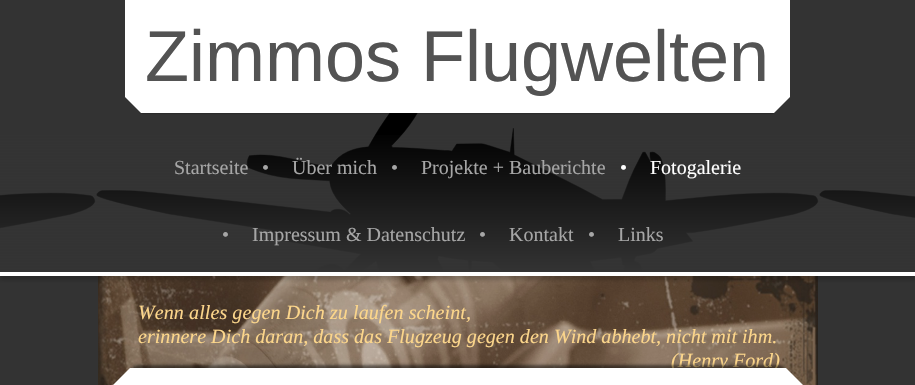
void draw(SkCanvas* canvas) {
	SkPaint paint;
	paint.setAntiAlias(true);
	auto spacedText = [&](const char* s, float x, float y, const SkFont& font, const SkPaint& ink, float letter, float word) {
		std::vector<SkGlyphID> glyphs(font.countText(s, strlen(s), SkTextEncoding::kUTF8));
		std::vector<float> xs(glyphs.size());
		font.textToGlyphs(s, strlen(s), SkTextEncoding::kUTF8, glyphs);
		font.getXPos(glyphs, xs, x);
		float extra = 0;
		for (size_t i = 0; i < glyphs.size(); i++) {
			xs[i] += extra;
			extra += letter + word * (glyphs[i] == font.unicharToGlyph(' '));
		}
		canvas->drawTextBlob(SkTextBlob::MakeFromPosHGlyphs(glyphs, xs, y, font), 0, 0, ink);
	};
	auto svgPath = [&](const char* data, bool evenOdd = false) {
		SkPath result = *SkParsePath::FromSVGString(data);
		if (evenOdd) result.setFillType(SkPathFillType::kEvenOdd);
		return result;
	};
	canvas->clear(0xff333333);
	canvas->drawImageRect(SkImages::DeferredFromEncodedData(SkData::MakeFromFileName("img1.png")), SkRect::MakeXYWH(0, 113, 915, 158), SkSamplingOptions());
	paint.setColor(0x80000000);
	paint.setMaskFilter(SkMaskFilter::MakeBlur(kNormal_SkBlurStyle, 1));
	canvas->drawRect(SkRect::MakeXYWH(141, 97, 633, 16), paint);
	paint.setMaskFilter(nullptr);
	paint.setColor(0xffffffff);
	canvas->drawRect(SkRect::MakeXYWH(125, 0, 665, 97), paint);
	SkFont f1(fontMgr->matchFamilyStyle("Liberation Sans", SkFontStyle::Normal()), 72);
	f1.setSubpixel(true);
	paint.setColor(0xff535353);
	canvas->drawString("Zimmos Flugwelten", 145, 81, f1, paint);
	paint.setColor(0xffffffff);
	canvas->drawPath(svgPath("M125 97H790L774 113H141Z"), paint);
	canvas->drawImageRect(SkImages::DeferredFromEncodedData(SkData::MakeFromFileName("img2.png")), SkRect::MakeXYWH(98, 276, 720, 109), SkSamplingOptions());
	canvas->save();
	canvas->clipRect(SkRect::MakeXYWH(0, 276, 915, 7));
	paint.setColor(0x33000000);
	paint.setMaskFilter(SkMaskFilter::MakeBlur(kNormal_SkBlurStyle, 2));
	canvas->drawRect(SkRect::MakeXYWH(0, 132, 915, 148), paint);
	paint.setMaskFilter(nullptr);
	canvas->restore();
	{
		const SkColor colors[] = {0x00333333, 0xff333333};
		const float stops[] = {0, 1};
		const SkPoint ends[] = {{458, 128}, {458, 272}};
		paint.setShader(SkGradientShader::MakeLinear(ends, colors, stops, 2, SkTileMode::kClamp));
		paint.setAlpha(255);
	}
	canvas->drawRect(SkRect::MakeXYWH(0, 135, 915, 136), paint);
	paint.setShader(nullptr);
	paint.setColor(0xffffffff);
	canvas->drawRect(SkRect::MakeXYWH(0, 272, 915, 4), paint);
	SkFont f2(fontMgr->matchFamilyStyle("Liberation Serif", SkFontStyle::Normal()), 20);
	f2.setSubpixel(true);
	paint.setColor(0xffa6a6a6);
	canvas->drawString("Startseite", 174, 174, f2, paint);
	canvas->drawString("•", 262, 174, f2, paint);
	canvas->drawString("Über mich", 292, 174, f2, paint);
	canvas->drawString("•", 391, 174, f2, paint);
	canvas->drawString("Projekte + Bauberichte", 421, 174, f2, paint);
	paint.setColor(0xffffffff);
	canvas->drawString("•", 620, 174, f2, paint);
	canvas->drawString("Fotogalerie", 650, 174, f2, paint);
	paint.setColor(0xffa6a6a6);
	canvas->drawString("•", 222, 241, f2, paint);
	canvas->drawString("Impressum & Datenschutz", 252, 241, f2, paint);
	canvas->drawString("•", 479, 241, f2, paint);
	canvas->drawString("Kontakt", 509, 241, f2, paint);
	canvas->drawString("•", 588, 241, f2, paint);
	canvas->drawString("Links", 618, 241, f2, paint);
	SkFont f3(fontMgr->matchFamilyStyle("Liberation Serif", SkFontStyle::Italic()), 20.1);
	f3.setSubpixel(true);
	paint.setColor(0xfffcd68b);
	spacedText("Wenn alles gegen Dich zu laufen scheint,", 138, 319, f3, paint, 0.05, 0);
	canvas->drawString("erinnere Dich daran, dass das Flugzeug gegen den Wind abhebt, nicht mit ihm.", 138, 343, f3, paint);
	canvas->drawString("(Henry Ford)", 671, 367, f3, paint);
	paint.setColor(0x80000000);
	paint.setMaskFilter(SkMaskFilter::MakeBlur(kNormal_SkBlurStyle, 1.5));
	canvas->drawRoundRect(SkRect::MakeXYWH(130, 365, 656, 16), 8, 8, paint);
	paint.setMaskFilter(nullptr);
	paint.setColor(0xffffffff);
	canvas->drawPath(svgPath("M818 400H98L130 368H786Z"), paint);
}
